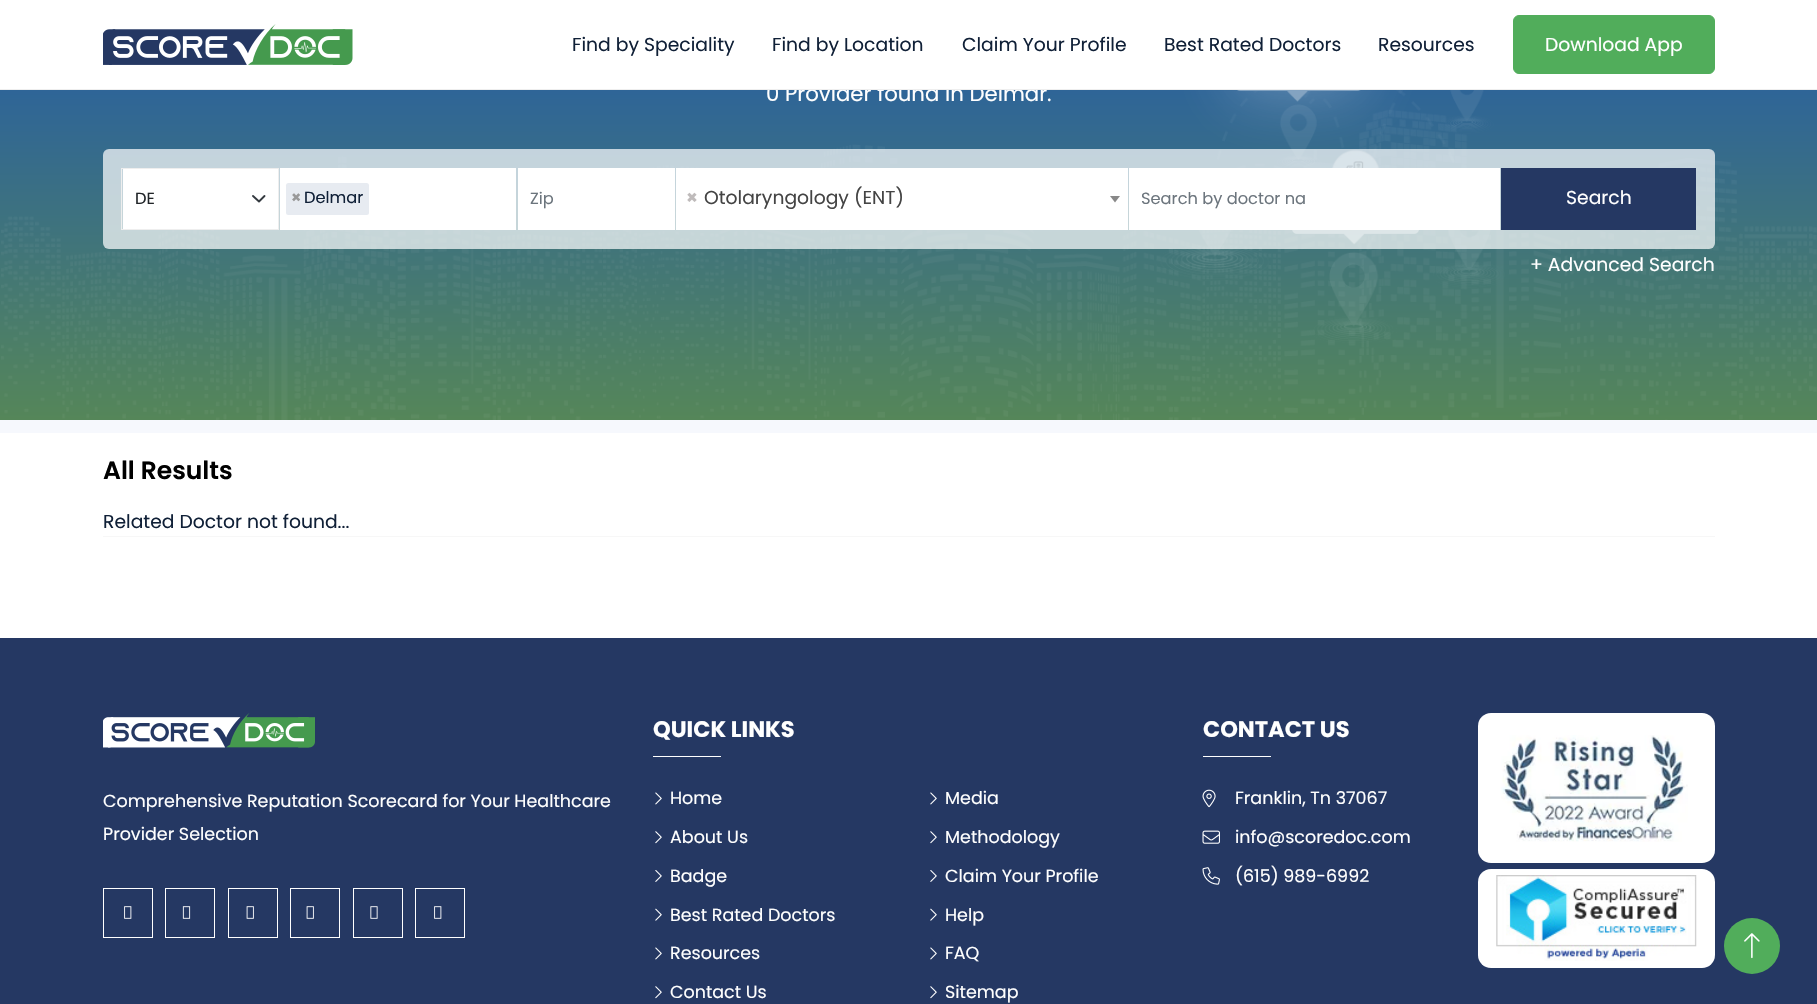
void draw(SkCanvas* canvas) {
	SkPaint paint;
	paint.setAntiAlias(true);
	auto svgPath = [&](const char* data, bool evenOdd = false) {
		SkPath result = *SkParsePath::FromSVGString(data);
		if (evenOdd) result.setFillType(SkPathFillType::kEvenOdd);
		return result;
	};
	canvas->clear(0xffffffff);
	{
		const SkColor colors[] = {0xff0e49cc, 0xff558659};
		const float stops[] = {0, 1};
		const SkPoint ends[] = {{909, -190}, {909, 420}};
		paint.setShader(SkGradientShader::MakeLinear(ends, colors, stops, 2, SkTileMode::kClamp));
		paint.setAlpha(255);
	}
	canvas->drawRect(SkRect::MakeXYWH(0, 90, 1817, 330), paint);
	canvas->drawImageRect(SkImages::DeferredFromEncodedData(SkData::MakeFromFileName("img2.png")), SkRect::MakeXYWH(1, 90, 1816, 330), SkSamplingOptions());
	SkFont f1(fontMgr->matchFamilyStyle("Poppins", SkFontStyle::Normal()), 21.25);
	f1.setSubpixel(true);
	paint.setShader(nullptr);
	paint.setColor(0xffffffff);
	canvas->drawString("0 Provider found in Delmar.", 766, 101, f1, paint);
	paint.setColor(0xffeeeeee);
	canvas->drawRect(SkRect::MakeXYWH(0, 89, 1817, 1), paint);
	canvas->drawImageRect(SkImages::DeferredFromEncodedData(SkData::MakeFromFileName("img1.png")), SkRect::MakeXYWH(103, 24, 250, 41), SkSamplingOptions());
	SkFont f2(fontMgr->matchFamilyStyle("Poppins", SkFontStyle::Normal()), 18.75);
	f2.setSubpixel(true);
	paint.setColor(0xff102037);
	canvas->drawString("Find by Speciality", 572, 51, f2, paint);
	canvas->drawString("Find by Location", 772, 51, f2, paint);
	canvas->drawString("Claim Your Profile", 962, 51, f2, paint);
	canvas->drawString("Best Rated Doctors", 1164, 51, f2, paint);
	canvas->drawString("Resources", 1378, 51, f2, paint);
	paint.setColor(0xff51ad5b);
	canvas->drawRoundRect(SkRect::MakeXYWH(1513.5, 15.5, 201, 58), 5.5, 5.5, paint);
	paint.setStroke(true);
	paint.setStrokeWidth(1);
	canvas->drawRoundRect(SkRect::MakeXYWH(1513.5, 15.5, 201, 58), 5.5, 5.5, paint);
	paint.setStroke(false);
	paint.setColor(0xffffffff);
	canvas->drawString("Download App", 1545, 51, f2, paint);
	paint.setColor(0xb3ffffff);
	canvas->drawRoundRect(SkRect::MakeXYWH(103, 149, 1612, 100), 6, 6, paint);
	paint.setColor(0xffffffff);
	canvas->drawRect(SkRect::MakeXYWH(123, 169, 155, 60), paint);
	paint.setStroke(true);
	paint.setStrokeWidth(1.9);
	paint.setStrokeCap(SkPaint::kRound_Cap);
	paint.setStrokeJoin(SkPaint::kRound_Join);
	paint.setColor(0xff343a40);
	canvas->drawPath(svgPath("M253 196L259 201.5L264.5 196"), paint);
	paint.setStrokeWidth(1);
	paint.setStrokeCap(SkPaint::kButt_Cap);
	paint.setStrokeJoin(SkPaint::kMiter_Join);
	paint.setColor(0xffeeeeee);
	canvas->drawRect(SkRect::MakeXYWH(121.5, 168.5, 157, 61), paint);
	SkFont f3(fontMgr->matchFamilyStyle("Poppins", SkFontStyle::Normal()), 16.25);
	f3.setSubpixel(true);
	paint.setStroke(false);
	paint.setColor(0xff212529);
	canvas->drawString("DE", 135, 204, f3, paint);
	paint.setColor(0xffffffff);
	canvas->drawRect(SkRect::MakeXYWH(280, 168, 236, 62), paint);
	paint.setColor(0xffe7ebf1);
	canvas->drawRoundRect(SkRect::MakeXYWH(286, 183, 83, 32), 2.5, 2.5, paint);
	SkFont f4(fontMgr->matchFamilyStyle("Poppins", SkFontStyle::Bold()), 16.25);
	f4.setSubpixel(true);
	paint.setColor(0xff999999);
	canvas->drawString("×", 291, 203, f4, paint);
	paint.setColor(0xff102037);
	canvas->drawString("Delmar", 304, 203, f3, paint);
	paint.setColor(0xffffffff);
	canvas->drawRect(SkRect::MakeXYWH(518, 168, 157, 62), paint);
	paint.setColor(0xff6c757d);
	canvas->drawString("Zip", 530, 204, f3, paint);
	paint.setColor(0xffffffff);
	canvas->drawRect(SkRect::MakeXYWH(676, 168, 452, 62), paint);
	SkFont f5(fontMgr->matchFamilyStyle("Poppins", SkFontStyle::Bold()), 18.75);
	f5.setSubpixel(true);
	paint.setColor(0xffbfbbbb);
	canvas->drawString("×", 686, 204, f5, paint);
	paint.setColor(0xff444444);
	canvas->drawString("Otolaryngology (ENT)", 704, 204, f2, paint);
	paint.setColor(0xff888888);
	canvas->drawPath(svgPath("M1110 196H1120L1115 202.5Z"), paint);
	paint.setColor(0xffffffff);
	canvas->drawRect(SkRect::MakeXYWH(1129, 168, 371, 62), paint);
	paint.setColor(0xff6c757d);
	canvas->drawString("Search by doctor na", 1141, 204, f3, paint);
	paint.setColor(0xff253863);
	canvas->drawRect(SkRect::MakeXYWH(1501, 168, 195, 62), paint);
	paint.setColor(0xffffffff);
	canvas->drawString("Search", 1566, 204, f2, paint);
	canvas->drawString("+ Advanced Search", 1530, 271, f2, paint);
	paint.setColor(0xfff6f8fd);
	canvas->drawRect(SkRect::MakeXYWH(0, 420, 1817, 13), paint);
	SkFont f6(fontMgr->matchFamilyStyle("Poppins", SkFontStyle(600, SkFontStyle::kNormal_Width, SkFontStyle::kUpright_Slant)), 25);
	f6.setSubpixel(true);
	paint.setColor(0xff000000);
	canvas->drawString("All Results", 103, 479, f6, paint);
	paint.setColor(0xfff7f7f7);
	canvas->drawRect(SkRect::MakeXYWH(103, 536, 1612, 1), paint);
	paint.setColor(0xff102037);
	canvas->drawString("Related Doctor not found...", 103, 528, f2, paint);
	paint.setColor(0xff253863);
	canvas->drawRect(SkRect::MakeXYWH(0, 638, 1817, 366), paint);
	canvas->drawImageRect(SkImages::DeferredFromEncodedData(SkData::MakeFromFileName("img3.png")), SkRect::MakeXYWH(103, 713, 212, 35), SkSamplingOptions());
	SkFont f7(fontMgr->matchFamilyStyle("Poppins", SkFontStyle::Normal()), 17.5);
	f7.setSubpixel(true);
	paint.setColor(0xffffffff);
	canvas->drawString("Comprehensive Reputation Scorecard for Your Healthcare", 103, 807, f7, paint);
	canvas->drawString("Provider Selection", 103, 840, f7, paint);
	paint.setStroke(true);
	canvas->drawRect(SkRect::MakeXYWH(103.5, 888.5, 49, 49), paint);
	canvas->drawImageRect(SkImages::DeferredFromEncodedData(SkData::MakeFromFileName("img4.png")), SkRect::MakeXYWH(124, 906, 8, 13), SkSamplingOptions());
	canvas->drawRect(SkRect::MakeXYWH(165.5, 888.5, 49, 49), paint);
	canvas->drawImageRect(SkImages::DeferredFromEncodedData(SkData::MakeFromFileName("img5.png")), SkRect::MakeXYWH(182, 906, 9, 13), SkSamplingOptions());
	canvas->drawRect(SkRect::MakeXYWH(228.5, 888.5, 49, 49), paint);
	canvas->drawImageRect(SkImages::DeferredFromEncodedData(SkData::MakeFromFileName("img6.png")), SkRect::MakeXYWH(246, 906, 8, 13), SkSamplingOptions());
	canvas->drawRect(SkRect::MakeXYWH(290.5, 888.5, 49, 49), paint);
	canvas->drawImageRect(SkImages::DeferredFromEncodedData(SkData::MakeFromFileName("img6.png")), SkRect::MakeXYWH(306, 906, 8, 13), SkSamplingOptions());
	canvas->drawRect(SkRect::MakeXYWH(353.5, 888.5, 49, 49), paint);
	canvas->drawImageRect(SkImages::DeferredFromEncodedData(SkData::MakeFromFileName("img7.png")), SkRect::MakeXYWH(370, 906, 8, 13), SkSamplingOptions());
	canvas->drawRect(SkRect::MakeXYWH(415.5, 888.5, 49, 49), paint);
	canvas->drawImageRect(SkImages::DeferredFromEncodedData(SkData::MakeFromFileName("img4.png")), SkRect::MakeXYWH(434, 906, 8, 13), SkSamplingOptions());
	SkFont f8(fontMgr->matchFamilyStyle("Poppins", SkFontStyle::Bold()), 22.5);
	f8.setSubpixel(true);
	paint.setStroke(false);
	canvas->drawString("QUICK LINKS", 653, 737, f8, paint);
	canvas->drawRect(SkRect::MakeXYWH(653, 756, 68, 1), paint);
	canvas->drawImageRect(SkImages::DeferredFromEncodedData(SkData::MakeFromFileName("img8.png")), SkRect::MakeXYWH(655, 792, 7, 13), SkSamplingOptions());
	canvas->drawString("Home", 670, 804, f7, paint);
	canvas->drawImageRect(SkImages::DeferredFromEncodedData(SkData::MakeFromFileName("img9.png")), SkRect::MakeXYWH(655, 831, 7, 13), SkSamplingOptions());
	canvas->drawString("About Us", 670, 843, f7, paint);
	canvas->drawImageRect(SkImages::DeferredFromEncodedData(SkData::MakeFromFileName("img10.png")), SkRect::MakeXYWH(655, 870, 7, 12), SkSamplingOptions());
	canvas->drawString("Badge", 670, 882, f7, paint);
	canvas->drawImageRect(SkImages::DeferredFromEncodedData(SkData::MakeFromFileName("img11.png")), SkRect::MakeXYWH(655, 908, 7, 13), SkSamplingOptions());
	canvas->drawString("Best Rated Doctors", 670, 921, f7, paint);
	canvas->drawImageRect(SkImages::DeferredFromEncodedData(SkData::MakeFromFileName("img8.png")), SkRect::MakeXYWH(655, 947, 7, 13), SkSamplingOptions());
	canvas->drawString("Resources", 670, 959, f7, paint);
	canvas->drawImageRect(SkImages::DeferredFromEncodedData(SkData::MakeFromFileName("img9.png")), SkRect::MakeXYWH(655, 986, 7, 13), SkSamplingOptions());
	canvas->drawString("Contact Us", 670, 998, f7, paint);
	canvas->drawImageRect(SkImages::DeferredFromEncodedData(SkData::MakeFromFileName("img8.png")), SkRect::MakeXYWH(930, 792, 7, 13), SkSamplingOptions());
	canvas->drawString("Media", 945, 804, f7, paint);
	canvas->drawImageRect(SkImages::DeferredFromEncodedData(SkData::MakeFromFileName("img9.png")), SkRect::MakeXYWH(930, 831, 7, 13), SkSamplingOptions());
	canvas->drawString("Methodology", 945, 843, f7, paint);
	canvas->drawImageRect(SkImages::DeferredFromEncodedData(SkData::MakeFromFileName("img10.png")), SkRect::MakeXYWH(930, 870, 7, 12), SkSamplingOptions());
	canvas->drawString("Claim Your Profile", 945, 882, f7, paint);
	canvas->drawImageRect(SkImages::DeferredFromEncodedData(SkData::MakeFromFileName("img11.png")), SkRect::MakeXYWH(930, 908, 7, 13), SkSamplingOptions());
	canvas->drawString("Help", 945, 921, f7, paint);
	canvas->drawImageRect(SkImages::DeferredFromEncodedData(SkData::MakeFromFileName("img8.png")), SkRect::MakeXYWH(930, 947, 7, 13), SkSamplingOptions());
	canvas->drawString("FAQ", 945, 959, f7, paint);
	canvas->drawImageRect(SkImages::DeferredFromEncodedData(SkData::MakeFromFileName("img9.png")), SkRect::MakeXYWH(930, 986, 7, 13), SkSamplingOptions());
	canvas->drawString("Sitemap", 945, 998, f7, paint);
	canvas->drawString("CONTACT US", 1203, 737, f8, paint);
	canvas->drawRect(SkRect::MakeXYWH(1203, 756, 68, 1), paint);
	canvas->drawImageRect(SkImages::DeferredFromEncodedData(SkData::MakeFromFileName("img12.png")), SkRect::MakeXYWH(1202, 789, 14, 19), SkSamplingOptions());
	canvas->drawString("Franklin, Tn 37067", 1235, 804, f7, paint);
	canvas->drawImageRect(SkImages::DeferredFromEncodedData(SkData::MakeFromFileName("img13.png")), SkRect::MakeXYWH(1202, 830, 18, 14), SkSamplingOptions());
	canvas->drawString("info@scoredoc.com", 1235, 843, f7, paint);
	canvas->drawImageRect(SkImages::DeferredFromEncodedData(SkData::MakeFromFileName("img14.png")), SkRect::MakeXYWH(1202, 867, 18, 18), SkSamplingOptions());
	canvas->drawString("(615) 989-6992", 1235, 882, f7, paint);
	canvas->drawRoundRect(SkRect::MakeXYWH(1478, 713, 237, 150), 13, 13, paint);
	canvas->drawImageRect(SkImages::DeferredFromEncodedData(SkData::MakeFromFileName("img15.png")), SkRect::MakeXYWH(1501, 735, 187, 107), SkSamplingOptions());
	canvas->drawRoundRect(SkRect::MakeXYWH(1478, 869, 237, 99), 13, 13, paint);
	canvas->drawImageRect(SkImages::DeferredFromEncodedData(SkData::MakeFromFileName("img16.png")), SkRect::MakeXYWH(1496, 875, 201, 86), SkSamplingOptions());
	paint.setColor(0xff51ad5b);
	canvas->drawCircle(1752, 946, 28, paint);
	canvas->drawImageRect(SkImages::DeferredFromEncodedData(SkData::MakeFromFileName("img17.png")), SkRect::MakeXYWH(1744, 933, 16, 26), SkSamplingOptions());
}
